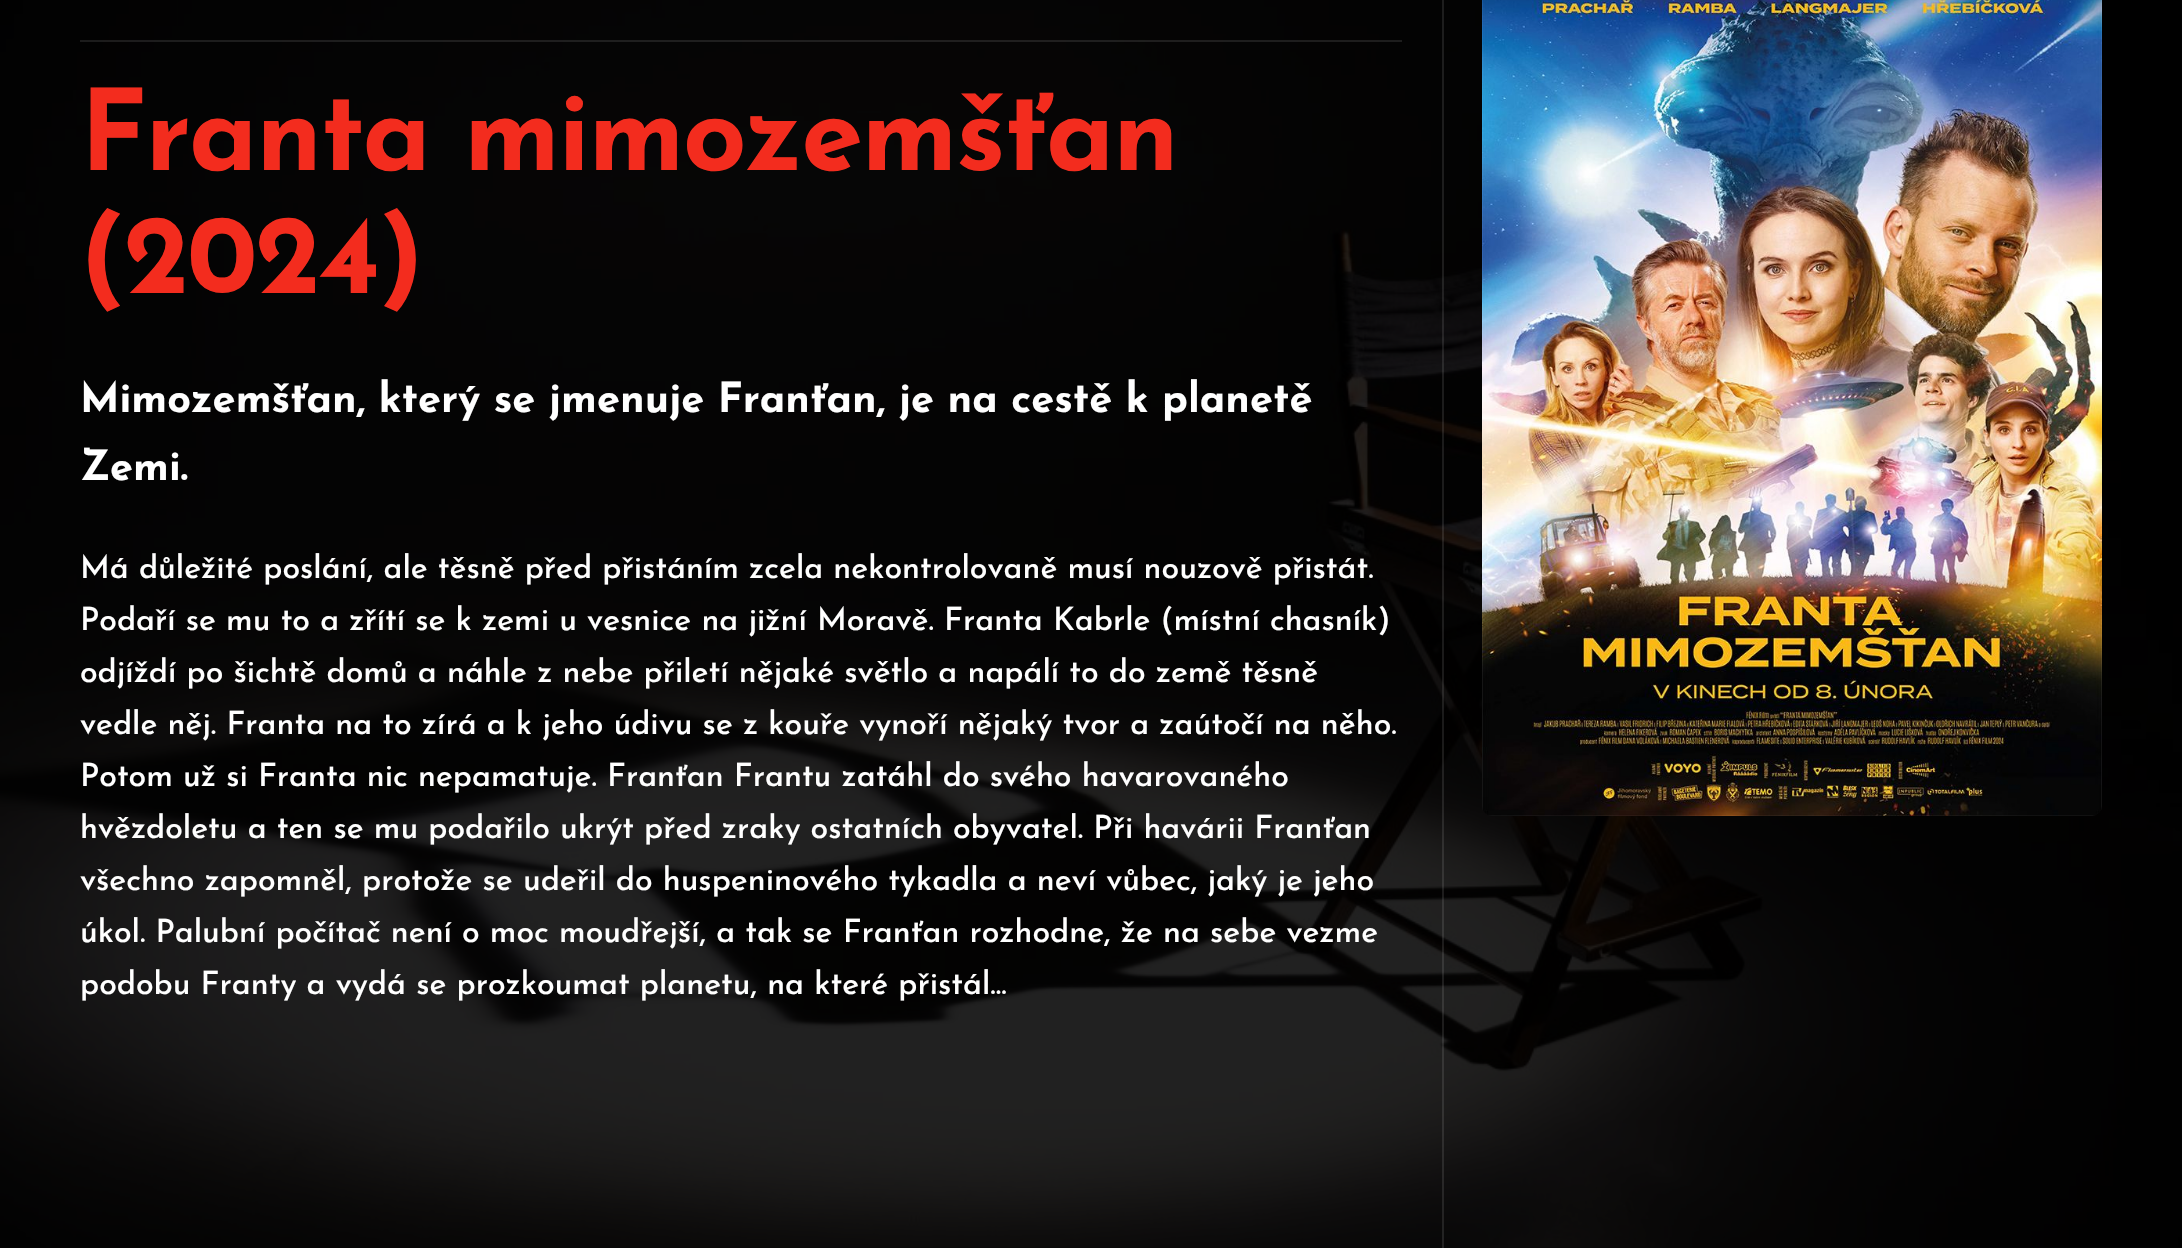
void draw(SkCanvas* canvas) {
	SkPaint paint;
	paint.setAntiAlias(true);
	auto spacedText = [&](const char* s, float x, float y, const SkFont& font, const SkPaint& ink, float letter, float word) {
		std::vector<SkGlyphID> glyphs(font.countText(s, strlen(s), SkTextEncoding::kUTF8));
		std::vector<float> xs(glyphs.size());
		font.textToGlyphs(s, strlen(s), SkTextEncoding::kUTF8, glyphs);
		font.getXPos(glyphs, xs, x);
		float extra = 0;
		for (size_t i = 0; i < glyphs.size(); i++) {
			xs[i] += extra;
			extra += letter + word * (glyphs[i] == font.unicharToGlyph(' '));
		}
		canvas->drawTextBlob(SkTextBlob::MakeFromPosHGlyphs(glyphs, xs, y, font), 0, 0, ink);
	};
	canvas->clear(0xffffffff);
	{
		const SkColor colors[] = {0xff000000, 0xff000000, 0xff050505};
		const float stops[] = {0, 0.05, 0.51};
		const SkPoint ends[] = {{585, -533}, {1597, 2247}};
		paint.setShader(SkGradientShader::MakeLinear(ends, colors, stops, 3, SkTileMode::kClamp));
		paint.setAlpha(255);
	}
	canvas->drawRect(SkRect::MakeXYWH(0, 0, 2182, 1248), paint);
	canvas->drawImageRect(SkImages::DeferredFromEncodedData(SkData::MakeFromFileName("img1.png")), SkRect::MakeXYWH(0, 0, 2182, 1248), SkSamplingOptions());
	paint.setShader(nullptr);
	paint.setColor(0x1affffff);
	canvas->drawRect(SkRect::MakeXYWH(80, 40, 1322, 2), paint);
	SkFont f1(fontMgr->matchFamilyStyle("Josefin Sans", SkFontStyle(100, SkFontStyle::kNormal_Width, SkFontStyle::kUpright_Slant)), 112);
	f1.setSubpixel(true);
	paint.setColor(0xfff32c1e);
	spacedText("Franta mimozemšťan", 80, 170, f1, paint, -2, 0);
	spacedText("(2024)", 80, 293, f1, paint, -2, 0);
	SkFont f2(fontMgr->matchFamilyStyle("Josefin Sans", SkFontStyle(100, SkFontStyle::kNormal_Width, SkFontStyle::kUpright_Slant)), 41.6);
	f2.setSubpixel(true);
	paint.setColor(0xffffffff);
	canvas->drawString("Mimozemšťan, který se jmenuje Franťan, je na cestě k planetě", 80, 412, f2, paint);
	canvas->drawString("Zemi.", 80, 480, f2, paint);
	SkFont f3(fontMgr->matchFamilyStyle("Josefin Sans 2", SkFontStyle(100, SkFontStyle::kNormal_Width, SkFontStyle::kUpright_Slant)), 32);
	f3.setSubpixel(true);
	canvas->drawString("Má důležité poslání, ale těsně před přistáním zcela nekontrolovaně musí nouzově přistát.", 80, 578, f3, paint);
	canvas->drawString("Podaří se mu to a zřítí se k zemi u vesnice na jižní Moravě. Franta Kabrle (místní chasník)", 80, 630, f3, paint);
	canvas->drawString("odjíždí po šichtě domů a náhle z nebe přiletí nějaké světlo a napálí to do země těsně", 80, 682, f3, paint);
	canvas->drawString("vedle něj. Franta na to zírá a k jeho údivu se z kouře vynoří nějaký tvor a zaútočí na něho.", 80, 734, f3, paint);
	canvas->drawString("Potom už si Franta nic nepamatuje. Franťan Frantu zatáhl do svého havarovaného", 80, 786, f3, paint);
	canvas->drawString("hvězdoletu a ten se mu podařilo ukrýt před zraky ostatních obyvatel. Při havárii Franťan", 80, 838, f3, paint);
	canvas->drawString("všechno zapomněl, protože se udeřil do huspeninového tykadla a neví vůbec, jaký je jeho", 80, 890, f3, paint);
	canvas->drawString("úkol. Palubní počítač není o moc moudřejší, a tak se Franťan rozhodne, že na sebe vezme", 80, 942, f3, paint);
	canvas->drawString("podobu Franty a vydá se prozkoumat planetu, na které přistál...", 80, 994, f3, paint);
	paint.setColor(0x1affffff);
	canvas->drawRect(SkRect::MakeXYWH(1442, 0, 2, 1248), paint);
	canvas->drawImageRect(SkImages::DeferredFromEncodedData(SkData::MakeFromFileName("img2.png")), SkRect::MakeXYWH(1482, 0, 620, 816), SkSamplingOptions());
}
